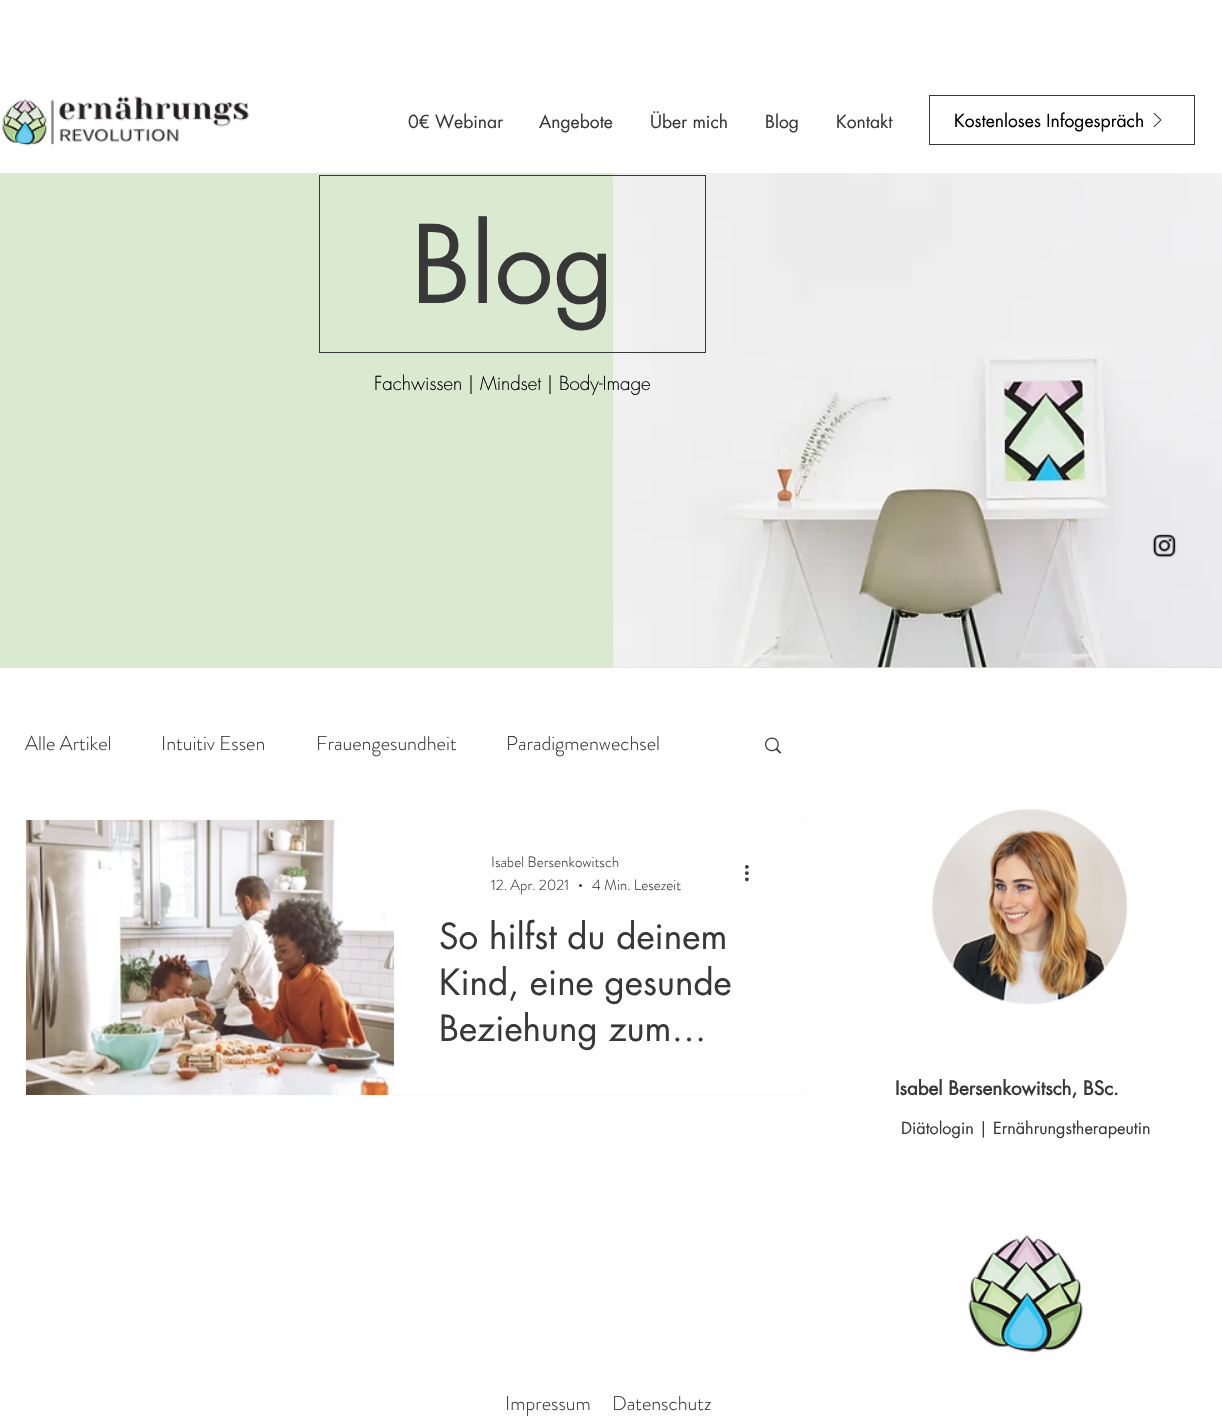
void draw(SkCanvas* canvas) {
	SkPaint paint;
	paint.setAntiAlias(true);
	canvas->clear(0xffffffff);
	canvas->drawImageRect(SkImages::DeferredFromEncodedData(SkData::MakeFromFileName("img1.png")), SkRect::MakeXYWH(2, 96, 247, 50), SkSamplingOptions());
	SkFont f1(fontMgr->matchFamilyStyle("futura", SkFontStyle::Normal()), 17.5);
	f1.setSubpixel(true);
	paint.setColor(0xff383838);
	canvas->drawString("0€ Webinar", 408, 128, f1, paint);
	canvas->drawString("Angebote", 539, 128, f1, paint);
	canvas->drawString("Über mich", 650, 128, f1, paint);
	canvas->drawString("Blog", 765, 128, f1, paint);
	canvas->drawString("Kontakt", 836, 128, f1, paint);
	paint.setStroke(true);
	paint.setStrokeWidth(1);
	canvas->drawRect(SkRect::MakeXYWH(929.5, 95.5, 265, 49), paint);
	paint.setStroke(false);
	paint.setColor(0xff000000);
	canvas->drawString("Kostenloses Infogespräch", 954, 127, f1, paint);
	canvas->drawImageRect(SkImages::DeferredFromEncodedData(SkData::MakeFromFileName("img2.png")), SkRect::MakeXYWH(1153, 112, 9, 16), SkSamplingOptions());
	paint.setColor(0xffdaead1);
	canvas->drawRect(SkRect::MakeXYWH(0, 173, 1222, 495), paint);
	canvas->drawImageRect(SkImages::DeferredFromEncodedData(SkData::MakeFromFileName("img3.png")), SkRect::MakeXYWH(613, 173, 609, 495), SkSamplingOptions());
	paint.setStroke(true);
	paint.setColor(0xff383838);
	canvas->drawRect(SkRect::MakeXYWH(319.5, 175.5, 386, 177), paint);
	SkFont f2(fontMgr->matchFamilyStyle("futura", SkFontStyle::Normal()), 105);
	f2.setSubpixel(true);
	paint.setStroke(false);
	canvas->drawString("Blog", 411, 303, f2, paint);
	SkFont f3(fontMgr->matchFamilyStyle("futura", SkFontStyle(300, SkFontStyle::kNormal_Width, SkFontStyle::kUpright_Slant)), 18.75);
	f3.setSubpixel(true);
	paint.setColor(0xff000000);
	canvas->drawString("Fachwissen | Mindset | Body-Image", 374, 390, f3, paint);
	SkFont f4(fontMgr->matchFamilyStyle("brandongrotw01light", SkFontStyle(300, SkFontStyle::kNormal_Width, SkFontStyle::kUpright_Slant)), 20);
	f4.setSubpixel(true);
	paint.setColor(0xff383838);
	canvas->drawString("Alle Artikel", 25, 750, f4, paint);
	canvas->drawString("Intuitiv Essen", 161, 750, f4, paint);
	canvas->drawString("Frauengesundheit", 316, 750, f4, paint);
	canvas->drawString("Paradigmenwechsel", 506, 750, f4, paint);
	canvas->drawImageRect(SkImages::DeferredFromEncodedData(SkData::MakeFromFileName("img4.png")), SkRect::MakeXYWH(765, 737, 17, 17), SkSamplingOptions());
	paint.setStroke(true);
	paint.setColor(0xfffbfbfb);
	canvas->drawRect(SkRect::MakeXYWH(25.5, 819.5, 779, 276), paint);
	canvas->drawImageRect(SkImages::DeferredFromEncodedData(SkData::MakeFromFileName("img5.png")), SkRect::MakeXYWH(26, 820, 368, 275), SkSamplingOptions());
	SkFont f5(fontMgr->matchFamilyStyle("brandongrotw01light", SkFontStyle(300, SkFontStyle::kNormal_Width, SkFontStyle::kUpright_Slant)), 15);
	f5.setSubpixel(true);
	paint.setStroke(false);
	paint.setColor(0xff383838);
	canvas->drawString("Isabel Bersenkowitsch", 491, 867, f5, paint);
	canvas->drawString("12. Apr. 2021", 491, 890, f5, paint);
	canvas->drawCircle(580.5, 885.5, 1.5, paint);
	canvas->drawString("4 Min. Lesezeit", 592, 890, f5, paint);
	canvas->drawImageRect(SkImages::DeferredFromEncodedData(SkData::MakeFromFileName("img6.png")), SkRect::MakeXYWH(745, 865, 4, 17), SkSamplingOptions());
	SkFont f6(fontMgr->matchFamilyStyle("futura", SkFontStyle::Normal()), 35);
	f6.setSubpixel(true);
	canvas->drawString("So hilfst du deinem", 439, 949, f6, paint);
	canvas->drawString("Kind, eine gesunde", 439, 995, f6, paint);
	canvas->drawString("Beziehung zum…", 439, 1041, f6, paint);
	canvas->drawImageRect(SkImages::DeferredFromEncodedData(SkData::MakeFromFileName("img7.png")), SkRect::MakeXYWH(931, 809, 197, 196), SkSamplingOptions());
	SkFont f7(fontMgr->matchFamilyStyle("futura", SkFontStyle::Bold()), 18.75);
	f7.setSubpixel(true);
	canvas->drawString("Isabel Bersenkowitsch, BSc.", 895, 1095, f7, paint);
	SkFont f8(fontMgr->matchFamilyStyle("futura", SkFontStyle::Normal()), 16.25);
	f8.setSubpixel(true);
	canvas->drawString("Diätologin | Ernährungstherapeutin", 901, 1134, f8, paint);
	canvas->drawImageRect(SkImages::DeferredFromEncodedData(SkData::MakeFromFileName("img8.png")), SkRect::MakeXYWH(968, 1235, 115, 118), SkSamplingOptions());
	canvas->drawImageRect(SkImages::DeferredFromEncodedData(SkData::MakeFromFileName("img9.png")), SkRect::MakeXYWH(1152, 534, 25, 24), SkSamplingOptions());
	canvas->drawString("Impressum", 505, 1410, f4, paint);
	canvas->drawString("Datenschutz", 612, 1410, f4, paint);
}
